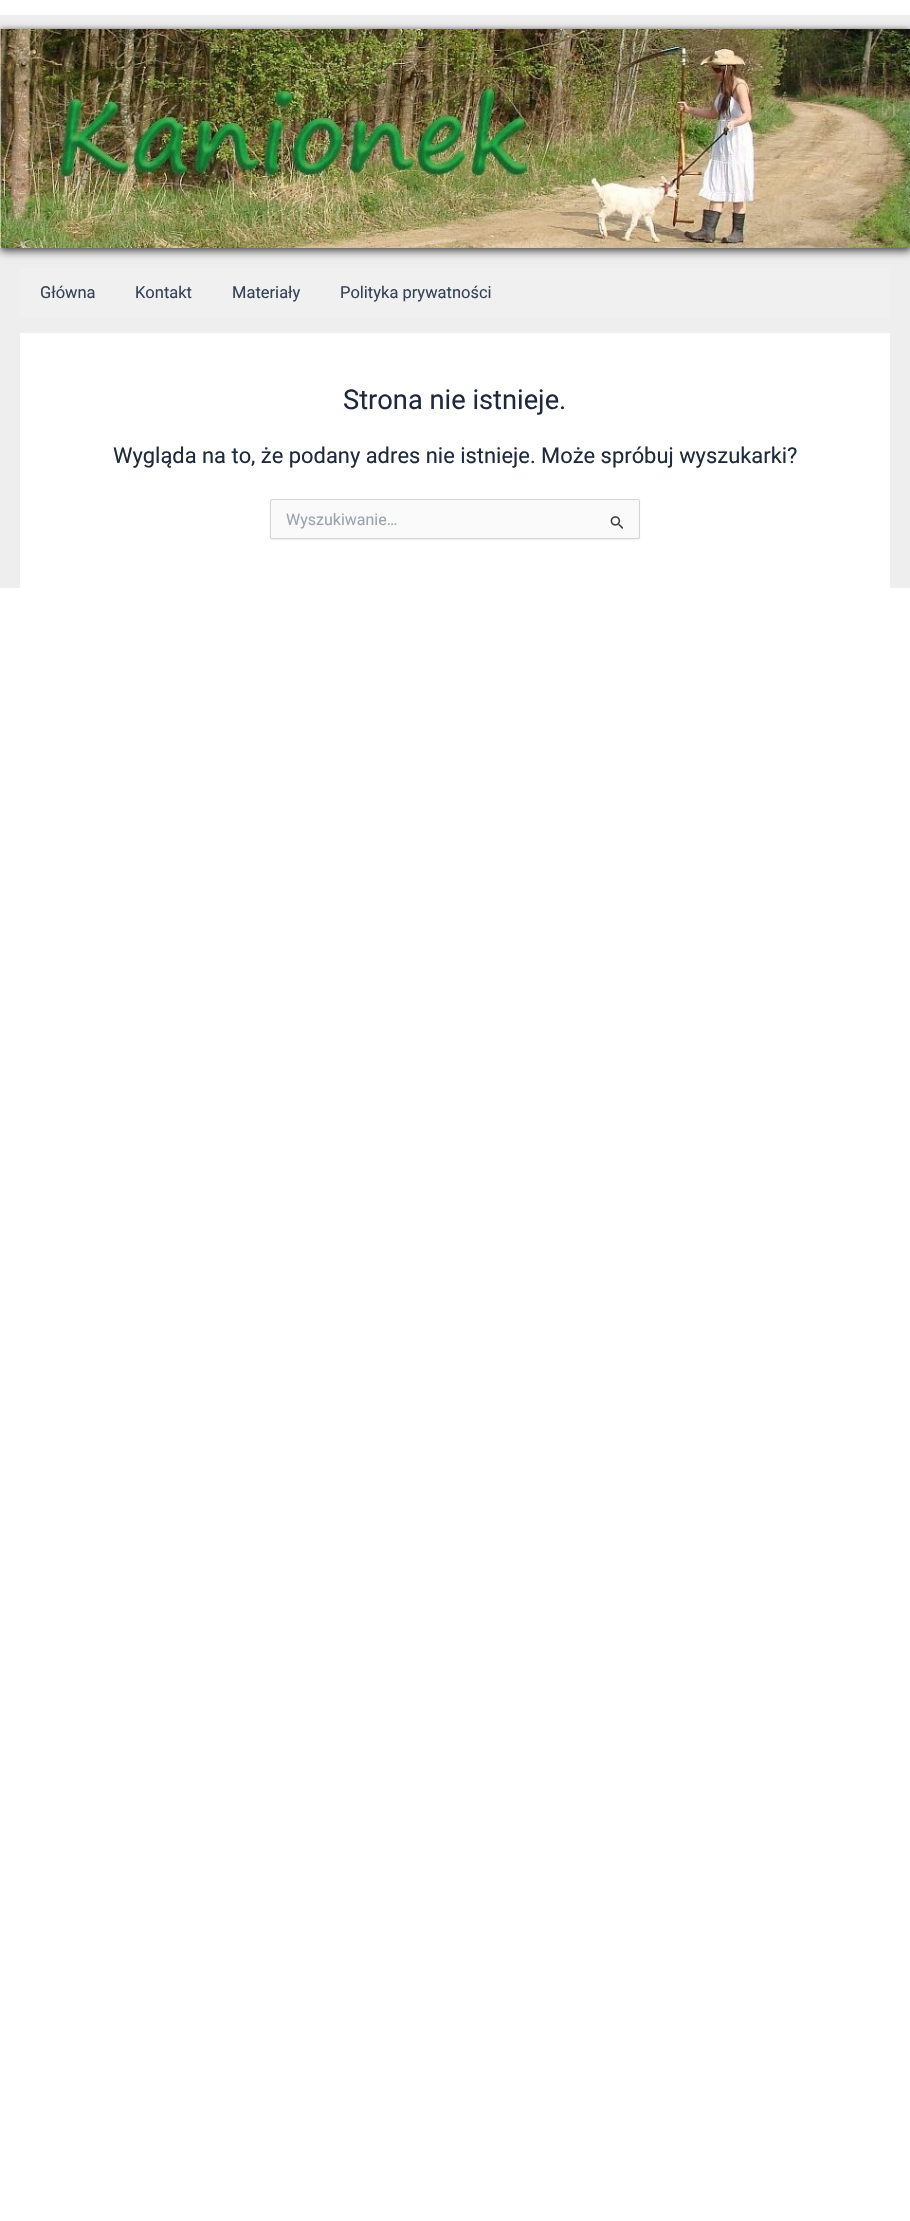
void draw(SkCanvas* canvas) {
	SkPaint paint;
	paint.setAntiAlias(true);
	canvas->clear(0xffffffff);
	paint.setColor(0xffeeeeee);
	canvas->drawRect(SkRect::MakeXYWH(0, 15, 910, 573), paint);
	paint.setColor(0x6e000000);
	paint.setMaskFilter(SkMaskFilter::MakeBlur(kNormal_SkBlurStyle, 3));
	canvas->drawRect(SkRect::MakeXYWH(0, 29, 910, 219), paint);
	paint.setMaskFilter(nullptr);
	paint.setColor(0x80000000);
	paint.setMaskFilter(SkMaskFilter::MakeBlur(kNormal_SkBlurStyle, 4));
	canvas->drawRect(SkRect::MakeXYWH(1, 33, 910, 219), paint);
	paint.setMaskFilter(nullptr);
	canvas->drawImageRect(SkImages::DeferredFromEncodedData(SkData::MakeFromFileName("img1.png")), SkRect::MakeXYWH(0, 29, 910, 219), SkSamplingOptions());
	paint.setColor(0xfff1f0f0);
	canvas->drawRect(SkRect::MakeXYWH(20, 268, 870, 49), paint);
	SkFont f1(fontMgr->matchFamilyStyle("Roboto", SkFontStyle::Normal()), 16.5);
	f1.setSubpixel(true);
	paint.setColor(0xff334155);
	canvas->drawString("Główna", 40, 298, f1, paint);
	canvas->drawString("Kontakt", 135, 298, f1, paint);
	canvas->drawString("Materiały", 232, 298, f1, paint);
	canvas->drawString("Polityka prywatności", 340, 298, f1, paint);
	paint.setColor(0xffffffff);
	canvas->drawRect(SkRect::MakeXYWH(20, 333, 870, 255), paint);
	SkFont f2(fontMgr->matchFamilyStyle("Roboto", SkFontStyle::Normal()), 27.25);
	f2.setSubpixel(true);
	paint.setColor(0xff1e293b);
	canvas->drawString("Strona nie istnieje.", 343, 409, f2, paint);
	SkFont f3(fontMgr->matchFamilyStyle("Roboto", SkFontStyle::Normal()), 21.9);
	f3.setSubpixel(true);
	canvas->drawString("Wygląda na to, że podany adres nie istnieje. Może spróbuj wyszukarki?", 113, 463, f3, paint);
	paint.setColor(0x0d000000);
	paint.setMaskFilter(SkMaskFilter::MakeBlur(kNormal_SkBlurStyle, 1));
	canvas->drawRoundRect(SkRect::MakeXYWH(270, 500, 370, 40), 2, 2, paint);
	paint.setMaskFilter(nullptr);
	paint.setColor(0xfffafafa);
	canvas->drawRoundRect(SkRect::MakeXYWH(270.5, 499.5, 369, 39), 1.5, 1.5, paint);
	paint.setStroke(true);
	paint.setStrokeWidth(1);
	paint.setColor(0xffd1d5db);
	canvas->drawRoundRect(SkRect::MakeXYWH(270.5, 499.5, 369, 39), 1.5, 1.5, paint);
	SkFont f4(fontMgr->matchFamilyStyle("Roboto", SkFontStyle::Normal()), 16);
	f4.setSubpixel(true);
	paint.setStroke(false);
	paint.setColor(0xff9ca3af);
	canvas->drawString("Wyszukiwanie…", 286, 525, f4, paint);
	canvas->drawImageRect(SkImages::DeferredFromEncodedData(SkData::MakeFromFileName("img2.png")), SkRect::MakeXYWH(610, 516, 13, 13), SkSamplingOptions());
}
